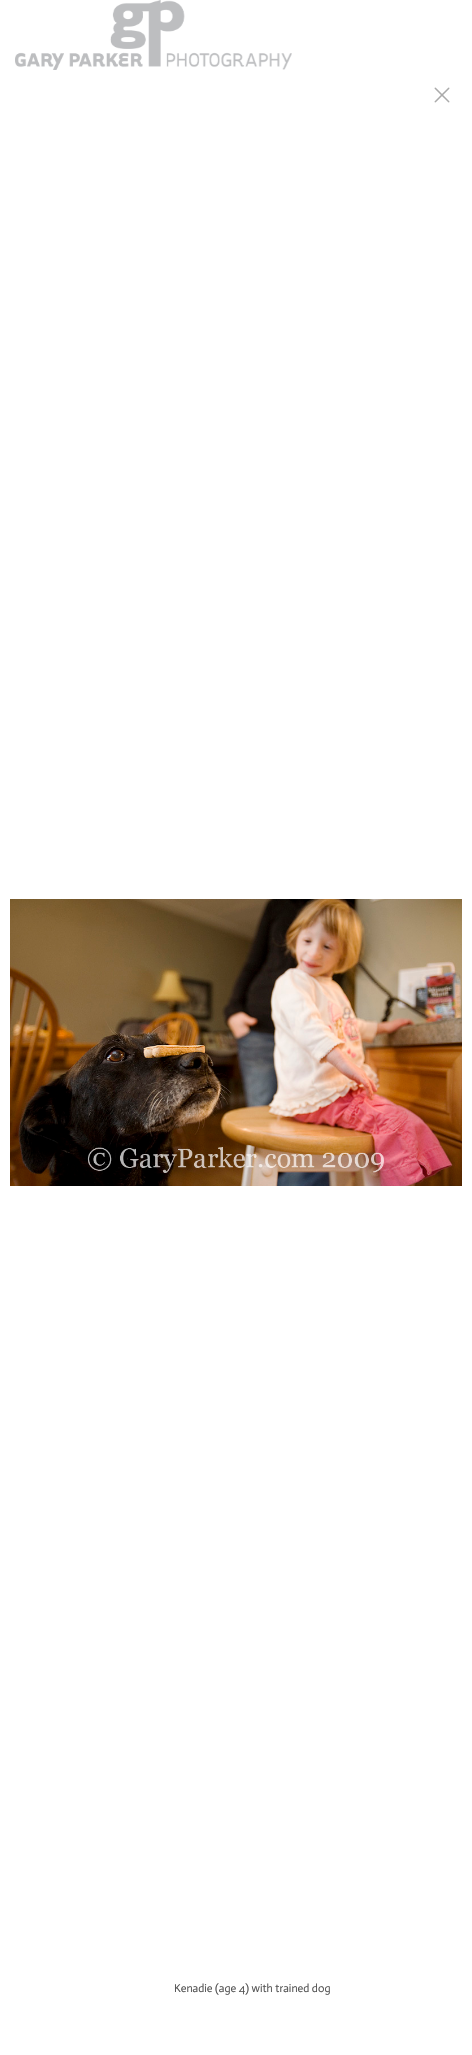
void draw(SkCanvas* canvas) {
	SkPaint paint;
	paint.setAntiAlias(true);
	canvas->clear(0xffffffff);
	canvas->drawImageRect(SkImages::DeferredFromEncodedData(SkData::MakeFromFileName("img1.png")), SkRect::MakeXYWH(15, 0, 277, 70), SkSamplingOptions());
	canvas->drawImageRect(SkImages::DeferredFromEncodedData(SkData::MakeFromFileName("img2.png")), SkRect::MakeXYWH(434, 87, 16, 16), SkSamplingOptions());
	canvas->drawImageRect(SkImages::DeferredFromEncodedData(SkData::MakeFromFileName("img3.png")), SkRect::MakeXYWH(10, 899, 452, 287), SkSamplingOptions());
	SkFont f1(fontMgr->matchFamilyStyle("Actor", SkFontStyle::Normal()), 11.25);
	f1.setSubpixel(true);
	paint.setColor(0xff555555);
	canvas->drawString("Kenadie (age 4) with trained dog", 174, 1992, f1, paint);
}
